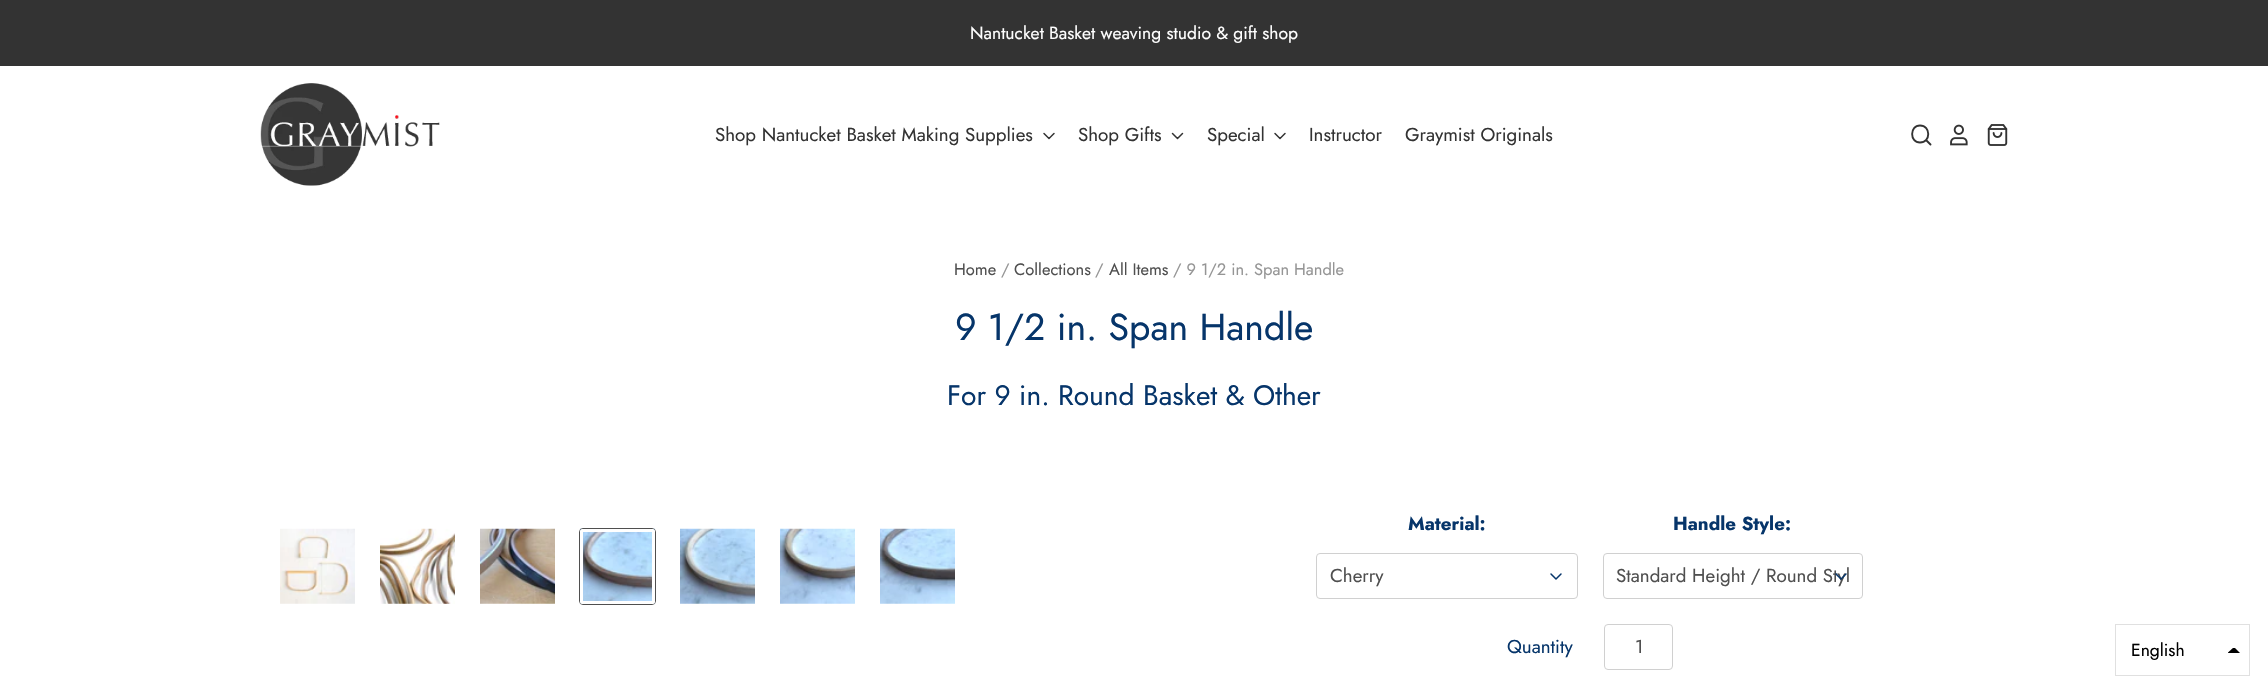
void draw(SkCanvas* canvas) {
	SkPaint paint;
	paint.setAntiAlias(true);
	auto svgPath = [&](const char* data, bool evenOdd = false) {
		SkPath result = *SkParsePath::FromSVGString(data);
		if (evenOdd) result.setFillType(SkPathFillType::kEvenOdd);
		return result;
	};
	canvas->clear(0xffffffff);
	paint.setColor(0xff333333);
	canvas->drawRect(SkRect::MakeXYWH(0, 0, 2268, 66), paint);
	SkFont f1(fontMgr->matchFamilyStyle("Jost", SkFontStyle::Normal()), 17.5);
	f1.setSubpixel(true);
	paint.setColor(0xffffffff);
	canvas->drawString("Nantucket Basket weaving studio & gift shop", 970, 39, f1, paint);
	canvas->drawImageRect(SkImages::DeferredFromEncodedData(SkData::MakeFromFileName("img1.png")), SkRect::MakeXYWH(260, 83, 180, 103), SkSamplingOptions());
	SkFont f2(fontMgr->matchFamilyStyle("Jost", SkFontStyle::Normal()), 18.75);
	f2.setSubpixel(true);
	paint.setColor(0xff333333);
	canvas->drawString("Shop Nantucket Basket Making Supplies", 715, 141, f2, paint);
	paint.setStroke(true);
	paint.setStrokeWidth(1.5);
	paint.setStrokeCap(SkPaint::kRound_Cap);
	paint.setStrokeJoin(SkPaint::kRound_Join);
	canvas->drawPath(svgPath("M1044 133.5L1049 138.5L1054 133.5"), paint);
	paint.setStroke(false);
	canvas->drawString("Shop Gifts", 1078, 141, f2, paint);
	paint.setStroke(true);
	canvas->drawPath(svgPath("M1172.5 133.5L1177.5 138.5L1182.5 133.5"), paint);
	paint.setStroke(false);
	canvas->drawString("Special", 1207, 141, f2, paint);
	paint.setStroke(true);
	canvas->drawPath(svgPath("M1275 133.5L1280 138.5L1285 133.5"), paint);
	paint.setStroke(false);
	canvas->drawString("Instructor", 1309, 141, f2, paint);
	canvas->drawString("Graymist Originals", 1405, 141, f2, paint);
	paint.setStroke(true);
	paint.setStrokeWidth(1.9);
	canvas->drawPath(svgPath("M1920 125.5C1909.5 125.5 1909.5 142.5 1920 142.5C1931 142.5 1931 125.5 1920 125.5ZM1930.5 144.5L1926 140Z"), paint);
	canvas->drawImageRect(SkImages::DeferredFromEncodedData(SkData::MakeFromFileName("img2.png")), SkRect::MakeXYWH(1950, 124, 18, 22), SkSamplingOptions());
	canvas->drawImageRect(SkImages::DeferredFromEncodedData(SkData::MakeFromFileName("img3.png")), SkRect::MakeXYWH(1987, 124, 21, 22), SkSamplingOptions());
	SkFont f3(fontMgr->matchFamilyStyle("Jost", SkFontStyle::Normal()), 16.5);
	f3.setSubpixel(true);
	paint.setStroke(false);
	paint.setColor(0xff4f4f4f);
	canvas->drawString("Home", 954, 275, f3, paint);
	paint.setColor(0xff959595);
	canvas->drawString("/", 1001, 275, f3, paint);
	paint.setColor(0xff4f4f4f);
	canvas->drawString("Collections", 1014, 275, f3, paint);
	paint.setColor(0xff959595);
	canvas->drawString("/", 1095, 275, f3, paint);
	paint.setColor(0xff4f4f4f);
	canvas->drawString("All Items", 1109, 275, f3, paint);
	paint.setColor(0xff959595);
	canvas->drawString("/ 9 1/2 in. Span Handle", 1173, 275, f3, paint);
	SkFont f4(fontMgr->matchFamilyStyle("Jost", SkFontStyle::Normal()), 37.5);
	f4.setSubpixel(true);
	paint.setColor(0xff06356a);
	canvas->drawString("9 1/2 in. Span Handle", 955, 340, f4, paint);
	SkFont f5(fontMgr->matchFamilyStyle("Jost", SkFontStyle::Normal()), 28.1);
	f5.setSubpixel(true);
	canvas->drawString("For 9 in. Round Basket & Other", 947, 405, f5, paint);
	canvas->drawImageRect(SkImages::DeferredFromEncodedData(SkData::MakeFromFileName("img4.png")), SkRect::MakeXYWH(280, 528, 75, 76), SkSamplingOptions());
	canvas->drawImageRect(SkImages::DeferredFromEncodedData(SkData::MakeFromFileName("img5.png")), SkRect::MakeXYWH(380, 528, 75, 76), SkSamplingOptions());
	canvas->drawImageRect(SkImages::DeferredFromEncodedData(SkData::MakeFromFileName("img6.png")), SkRect::MakeXYWH(480, 528, 75, 76), SkSamplingOptions());
	canvas->drawImageRect(SkImages::DeferredFromEncodedData(SkData::MakeFromFileName("img7.png")), SkRect::MakeXYWH(580, 528, 75, 76), SkSamplingOptions());
	paint.setStroke(true);
	paint.setStrokeWidth(1);
	paint.setStrokeCap(SkPaint::kButt_Cap);
	paint.setStrokeJoin(SkPaint::kMiter_Join);
	paint.setColor(0xff4f4f4f);
	canvas->drawRoundRect(SkRect::MakeXYWH(579.5, 528.5, 76, 76), 3.5, 3.5, paint);
	paint.setStrokeWidth(3);
	paint.setColor(0xffffffff);
	canvas->drawRoundRect(SkRect::MakeXYWH(581.5, 530.5, 72, 72), 1, 1, paint);
	canvas->drawImageRect(SkImages::DeferredFromEncodedData(SkData::MakeFromFileName("img8.png")), SkRect::MakeXYWH(680, 528, 75, 76), SkSamplingOptions());
	canvas->drawImageRect(SkImages::DeferredFromEncodedData(SkData::MakeFromFileName("img9.png")), SkRect::MakeXYWH(780, 528, 75, 76), SkSamplingOptions());
	canvas->drawImageRect(SkImages::DeferredFromEncodedData(SkData::MakeFromFileName("img10.png")), SkRect::MakeXYWH(880, 528, 75, 76), SkSamplingOptions());
	SkFont f6(fontMgr->matchFamilyStyle("Jost", SkFontStyle::Bold()), 18.75);
	f6.setSubpixel(true);
	paint.setStroke(false);
	paint.setColor(0xff06356a);
	canvas->drawString("Material:", 1408, 530, f6, paint);
	paint.setStroke(true);
	paint.setStrokeWidth(1);
	paint.setColor(0xffd0d0d0);
	canvas->drawRoundRect(SkRect::MakeXYWH(1316.5, 553.5, 261, 45), 3.5, 3.5, paint);
	paint.setStroke(false);
	paint.setColor(0xff4f4f4f);
	canvas->drawString("Cherry", 1330, 582, f2, paint);
	paint.setStroke(true);
	paint.setStrokeWidth(1.5);
	paint.setStrokeCap(SkPaint::kRound_Cap);
	paint.setStrokeJoin(SkPaint::kRound_Join);
	paint.setColor(0xff06356a);
	canvas->drawPath(svgPath("M1551 574L1556 579L1561 574"), paint);
	paint.setStroke(false);
	canvas->drawString("Handle Style:", 1673, 530, f6, paint);
	paint.setStroke(true);
	paint.setStrokeWidth(1);
	paint.setStrokeCap(SkPaint::kButt_Cap);
	paint.setStrokeJoin(SkPaint::kMiter_Join);
	paint.setColor(0xffd0d0d0);
	canvas->drawRoundRect(SkRect::MakeXYWH(1603.5, 553.5, 259, 45), 3.5, 3.5, paint);
	paint.setStroke(false);
	paint.setColor(0xff4f4f4f);
	canvas->drawString("Standard Height / Round Styl", 1616, 582, f2, paint);
	paint.setStroke(true);
	paint.setStrokeWidth(1.5);
	paint.setStrokeCap(SkPaint::kRound_Cap);
	paint.setStrokeJoin(SkPaint::kRound_Join);
	paint.setColor(0xff06356a);
	canvas->drawPath(svgPath("M1836 574L1841 579L1846 574"), paint);
	paint.setStroke(false);
	canvas->drawString("Quantity", 1507, 653, f2, paint);
	paint.setStroke(true);
	paint.setStrokeWidth(1);
	paint.setStrokeCap(SkPaint::kButt_Cap);
	paint.setStrokeJoin(SkPaint::kMiter_Join);
	paint.setColor(0xffd0d0d0);
	canvas->drawRoundRect(SkRect::MakeXYWH(1604.5, 624.5, 68, 45), 3.5, 3.5, paint);
	paint.setStroke(false);
	paint.setColor(0xff4f4f4f);
	canvas->drawString("1", 1635, 653, f2, paint);
	paint.setStroke(true);
	paint.setColor(0xffe0e0e0);
	canvas->drawRect(SkRect::MakeXYWH(2115.5, 624.5, 134, 51), paint);
	paint.setStroke(false);
	paint.setColor(0xff000000);
	canvas->drawString("English", 2131, 656, f1, paint);
	canvas->save();
	canvas->clipRect(SkRect::MakeXYWH(2228, 648, 12, 6));
	canvas->drawPath(svgPath("M2227.5 653L2234 647L2240 653Z", true), paint);
	canvas->restore();
}
